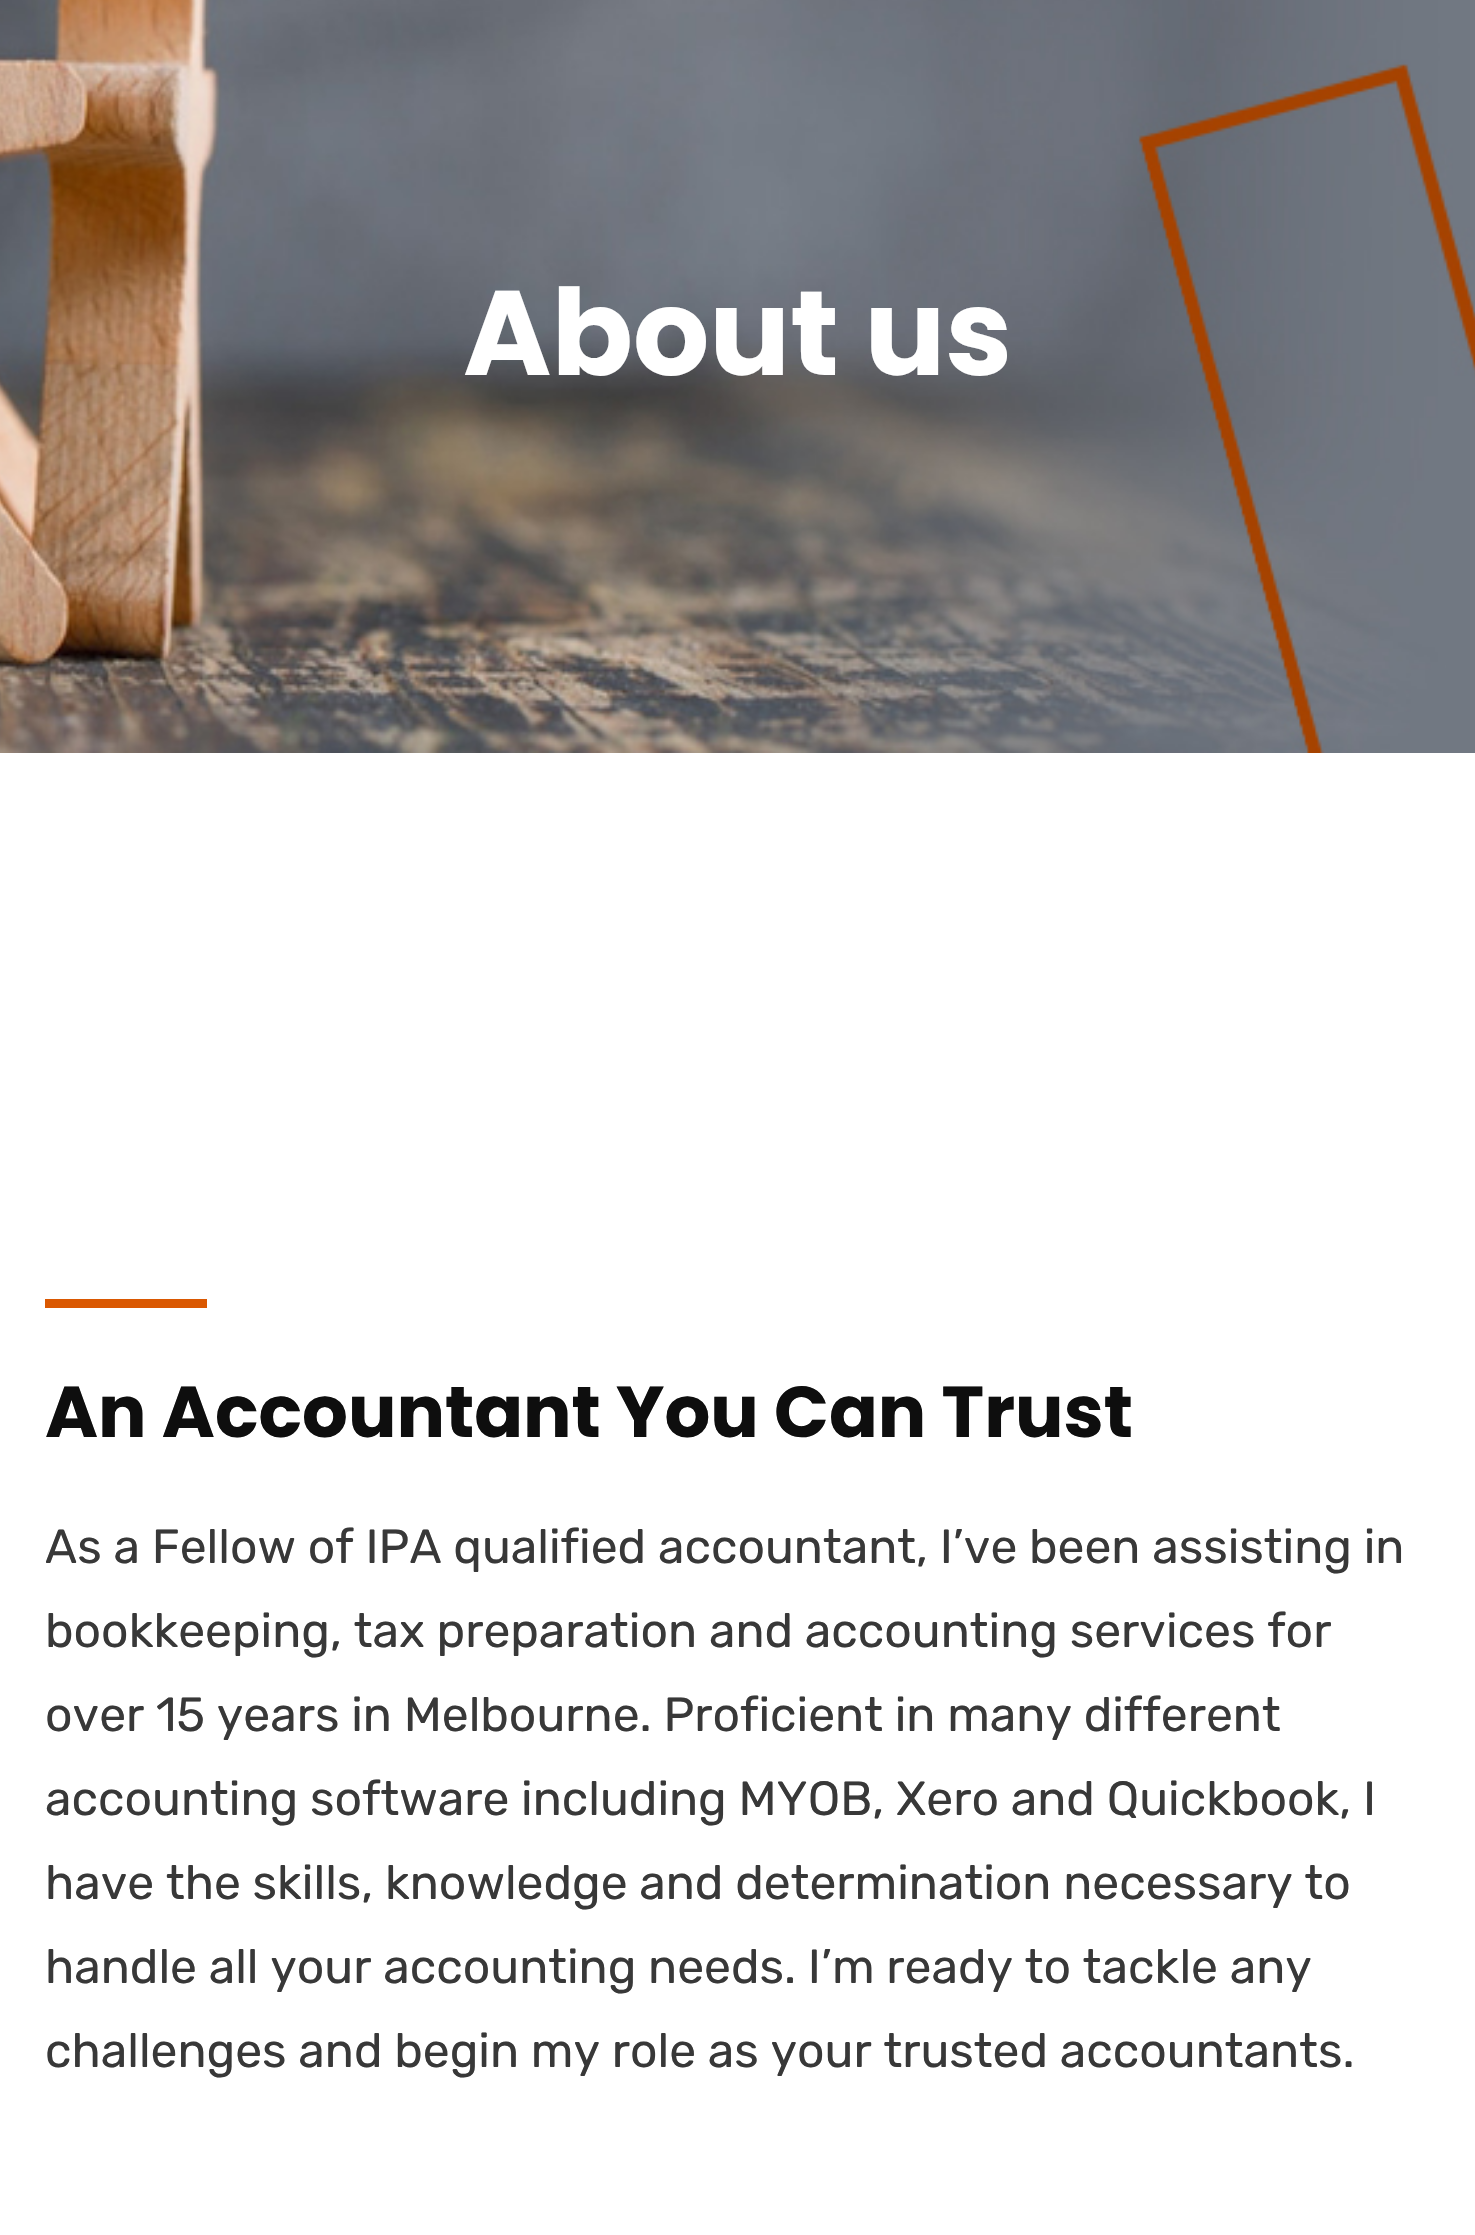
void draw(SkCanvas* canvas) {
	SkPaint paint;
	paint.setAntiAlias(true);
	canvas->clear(0xffffffff);
	canvas->drawImageRect(SkImages::DeferredFromEncodedData(SkData::MakeFromFileName("img1.png")), SkRect::MakeXYWH(0, 0, 1475, 753), SkSamplingOptions());
	SkFont f1(fontMgr->matchFamilyStyle("Poppins", SkFontStyle::Bold()), 120);
	f1.setSubpixel(true);
	paint.setColor(0xffffffff);
	canvas->drawString("About us", 463, 375, f1, paint);
	paint.setColor(0xffda5801);
	canvas->drawRect(SkRect::MakeXYWH(45, 1299, 162, 9), paint);
	SkFont f2(fontMgr->matchFamilyStyle("Poppins", SkFontStyle::Bold()), 72);
	f2.setSubpixel(true);
	paint.setColor(0xff0e0e0e);
	canvas->drawString("An Accountant You Can Trust", 45, 1437, f2, paint);
	SkFont f3(fontMgr->matchFamilyStyle("Rubik", SkFontStyle::Normal()), 48);
	f3.setSubpixel(true);
	paint.setColor(0xff383838);
	canvas->drawString("As a Fellow of IPA qualified accountant, I’ve been assisting in", 45, 1563, f3, paint);
	canvas->drawString("bookkeeping, tax preparation and accounting services for", 45, 1647, f3, paint);
	canvas->drawString("over 15 years in Melbourne. Proficient in many different", 45, 1731, f3, paint);
	canvas->drawString("accounting software including MYOB, Xero and Quickbook, I", 45, 1815, f3, paint);
	canvas->drawString("have the skills, knowledge and determination necessary to", 45, 1899, f3, paint);
	canvas->drawString("handle all your accounting needs. I’m ready to tackle any", 45, 1983, f3, paint);
	canvas->drawString("challenges and begin my role as your trusted accountants.", 45, 2067, f3, paint);
}
